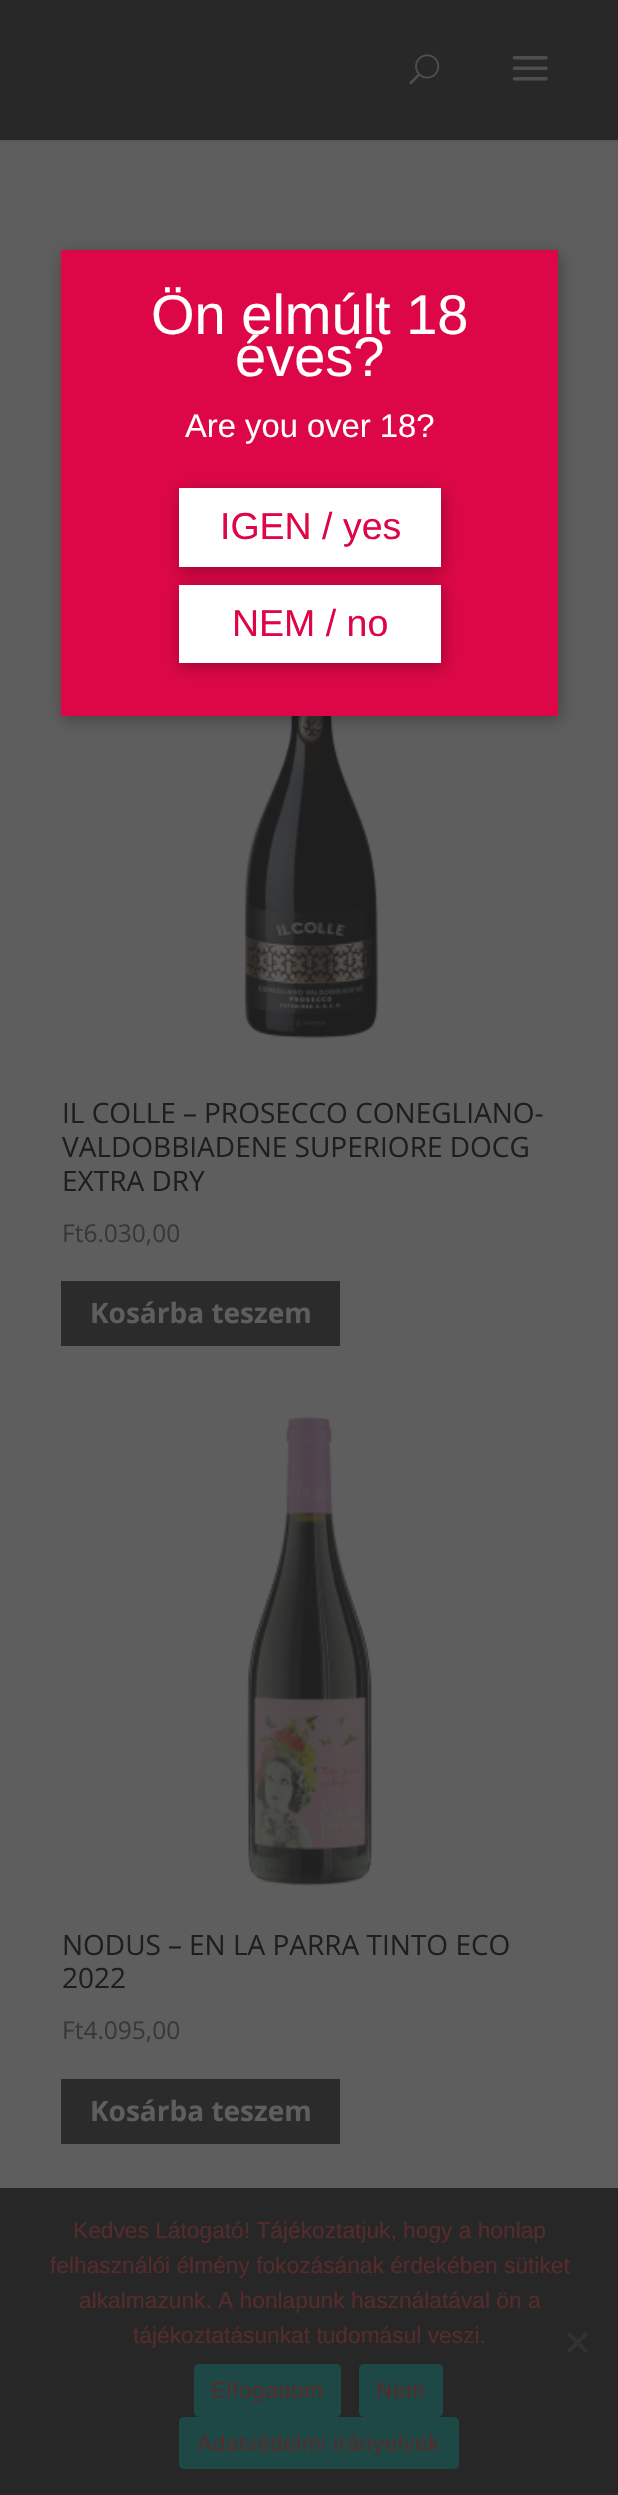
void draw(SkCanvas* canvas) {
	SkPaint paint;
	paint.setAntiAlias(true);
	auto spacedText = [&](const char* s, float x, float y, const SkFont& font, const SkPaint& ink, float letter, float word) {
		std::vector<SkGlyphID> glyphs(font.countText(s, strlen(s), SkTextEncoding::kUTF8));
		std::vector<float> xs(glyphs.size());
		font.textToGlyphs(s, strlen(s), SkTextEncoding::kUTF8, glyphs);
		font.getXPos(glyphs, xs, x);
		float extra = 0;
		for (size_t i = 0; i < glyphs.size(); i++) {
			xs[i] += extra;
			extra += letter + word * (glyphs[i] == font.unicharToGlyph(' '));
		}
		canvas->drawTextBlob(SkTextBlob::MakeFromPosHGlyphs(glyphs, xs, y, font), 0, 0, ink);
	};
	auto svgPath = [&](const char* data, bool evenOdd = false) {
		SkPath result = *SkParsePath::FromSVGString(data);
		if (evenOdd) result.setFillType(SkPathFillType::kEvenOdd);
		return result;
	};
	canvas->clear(0xff5e5e5e);
	canvas->drawImageRect(SkImages::DeferredFromEncodedData(SkData::MakeFromFileName("img3.png")), SkRect::MakeXYWH(244, 716, 135, 323), SkSamplingOptions());
	paint.setColor(0x4d000000);
	paint.setMaskFilter(SkMaskFilter::MakeBlur(kNormal_SkBlurStyle, 8));
	canvas->drawRect(SkRect::MakeXYWH(63, 254, 497, 465), paint);
	paint.setMaskFilter(nullptr);
	paint.setColor(0xffdd0747);
	canvas->drawRect(SkRect::MakeXYWH(61, 250, 497, 466), paint);
	SkFont f1(fontMgr->matchFamilyStyle("Liberation Sans", SkFontStyle::Normal()), 56);
	f1.setSubpixel(true);
	paint.setColor(0xffffffff);
	canvas->drawString("Ön elmúlt 18", 151, 334, f1, paint);
	canvas->drawString("éves?", 235, 376, f1, paint);
	SkFont f2(fontMgr->matchFamilyStyle("Liberation Sans", SkFontStyle::Normal()), 32.75);
	f2.setSubpixel(true);
	canvas->drawString("Are you over 18?", 185, 437, f2, paint);
	paint.setColor(0x4d000000);
	paint.setMaskFilter(SkMaskFilter::MakeBlur(kNormal_SkBlurStyle, 8));
	canvas->drawRect(SkRect::MakeXYWH(180, 492, 263, 79), paint);
	paint.setMaskFilter(nullptr);
	paint.setColor(0xffffffff);
	canvas->drawRect(SkRect::MakeXYWH(179, 488, 262, 79), paint);
	SkFont f3(fontMgr->matchFamilyStyle("Liberation Sans", SkFontStyle::Normal()), 37.5);
	f3.setSubpixel(true);
	paint.setColor(0xffdd0747);
	canvas->drawString("IGEN / yes", 220, 539, f3, paint);
	paint.setColor(0x4d000000);
	paint.setMaskFilter(SkMaskFilter::MakeBlur(kNormal_SkBlurStyle, 8));
	canvas->drawRect(SkRect::MakeXYWH(180, 588, 263, 79), paint);
	paint.setMaskFilter(nullptr);
	paint.setColor(0xffffffff);
	canvas->drawRect(SkRect::MakeXYWH(179, 585, 262, 78), paint);
	paint.setColor(0xffdd0747);
	canvas->drawString("NEM / no", 232, 636, f3, paint);
	paint.setColor(0xff585858);
	canvas->drawPath(svgPath("M0 140V142H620V2V140Z"), paint);
	paint.setColor(0xff282828);
	canvas->drawRect(SkRect::MakeXYWH(0, 0, 618, 140), paint);
	canvas->drawImageRect(SkImages::DeferredFromEncodedData(SkData::MakeFromFileName("img1.png")), SkRect::MakeXYWH(409, 54, 31, 31), SkSamplingOptions());
	canvas->drawImageRect(SkImages::DeferredFromEncodedData(SkData::MakeFromFileName("img2.png")), SkRect::MakeXYWH(512, 56, 36, 25), SkSamplingOptions());
	SkFont f4(fontMgr->matchFamilyStyle("Open Sans", SkFontStyle::Normal()), 28);
	f4.setSubpixel(true);
	paint.setColor(0xff1e1e1e);
	canvas->drawString("IL COLLE", 62, 1123, f4, paint);
	SkFont f5(fontMgr->matchFamilyStyle("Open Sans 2", SkFontStyle::Normal()), 28);
	f5.setSubpixel(true);
	canvas->drawString("–", 183, 1123, f5, paint);
	canvas->drawString("PROSECCO CONEGLIANO-", 204, 1123, f4, paint);
	canvas->drawString("VALDOBBIADENE SUPERIORE DOCG", 62, 1157, f4, paint);
	canvas->drawString("EXTRA DRY", 62, 1191, f4, paint);
	SkFont f6(fontMgr->matchFamilyStyle("Open Sans", SkFontStyle::Normal()), 24.5);
	f6.setSubpixel(true);
	paint.setColor(0xff383838);
	canvas->drawString("Ft6.030,00", 62, 1242, f6, paint);
	paint.setColor(0xff2b2b2b);
	canvas->drawRect(SkRect::MakeXYWH(61, 1281, 279, 65), paint);
	SkFont f7(fontMgr->matchFamilyStyle("Open Sans", SkFontStyle::Bold()), 28);
	f7.setSubpixel(true);
	paint.setColor(0xff5e5e5e);
	canvas->drawString("Kosárba teszem", 90, 1323, f7, paint);
	canvas->drawImageRect(SkImages::DeferredFromEncodedData(SkData::MakeFromFileName("img4.png")), SkRect::MakeXYWH(246, 1416, 127, 470), SkSamplingOptions());
	paint.setColor(0xff1e1e1e);
	canvas->drawString("NODUS", 62, 1955, f4, paint);
	canvas->drawString("–", 168, 1955, f5, paint);
	canvas->drawString("EN LA PARRA TINTO ECO", 189, 1955, f4, paint);
	canvas->drawString("2022", 62, 1988, f4, paint);
	paint.setColor(0xff383838);
	canvas->drawString("Ft4.095,00", 62, 2039, f6, paint);
	paint.setColor(0xff2b2b2b);
	canvas->drawRect(SkRect::MakeXYWH(61, 2079, 279, 65), paint);
	paint.setColor(0xff5e5e5e);
	canvas->drawString("Kosárba teszem", 90, 2121, f7, paint);
	paint.setColor(0xff272727);
	canvas->drawRect(SkRect::MakeXYWH(0, 2188, 618, 307), paint);
	SkFont f8(fontMgr->matchFamilyStyle("Liberation Sans", SkFontStyle::Normal()), 22.75);
	f8.setSubpixel(true);
	paint.setColor(0xff552b2b);
	canvas->drawString("Kedves Látogató! Tájékoztatjuk, hogy a honlap", 73, 2238, f8, paint);
	canvas->drawString("felhasználói élmény fokozásának érdekében sütiket", 50, 2273, f8, paint);
	canvas->drawString("alkalmazunk. A honlapunk használatával ön a", 79, 2308, f8, paint);
	canvas->drawString("tájékoztatásunkat tudomásul veszi.", 133, 2343, f8, paint);
	paint.setColor(0xff323232);
	canvas->drawPath(svgPath("M585.5 2332L588 2334.5L569.5 2353L567 2350.5Z"), paint);
	canvas->drawPath(svgPath("M567 2334.5L569.5 2332L588 2350.5L585.5 2353Z"), paint);
	paint.setColor(0xff1e4845);
	canvas->drawRoundRect(SkRect::MakeXYWH(194, 2364, 147, 53), 5, 5, paint);
	paint.setColor(0xff552b2b);
	spacedText("Elfogadom", 211, 2398, f8, paint, 0.4, 0);
	paint.setColor(0xff1e4845);
	canvas->drawRoundRect(SkRect::MakeXYWH(359, 2364, 84, 53), 5, 5, paint);
	paint.setColor(0xff552b2b);
	spacedText("Nem", 376, 2398, f8, paint, 0.4, 0);
	paint.setColor(0xff1e4845);
	canvas->drawRoundRect(SkRect::MakeXYWH(179, 2417, 280, 52), 5, 5, paint);
	paint.setColor(0xff552b2b);
	spacedText("Adatvédelmi irányelvek", 197, 2451, f8, paint, 0.4, 0);
}
